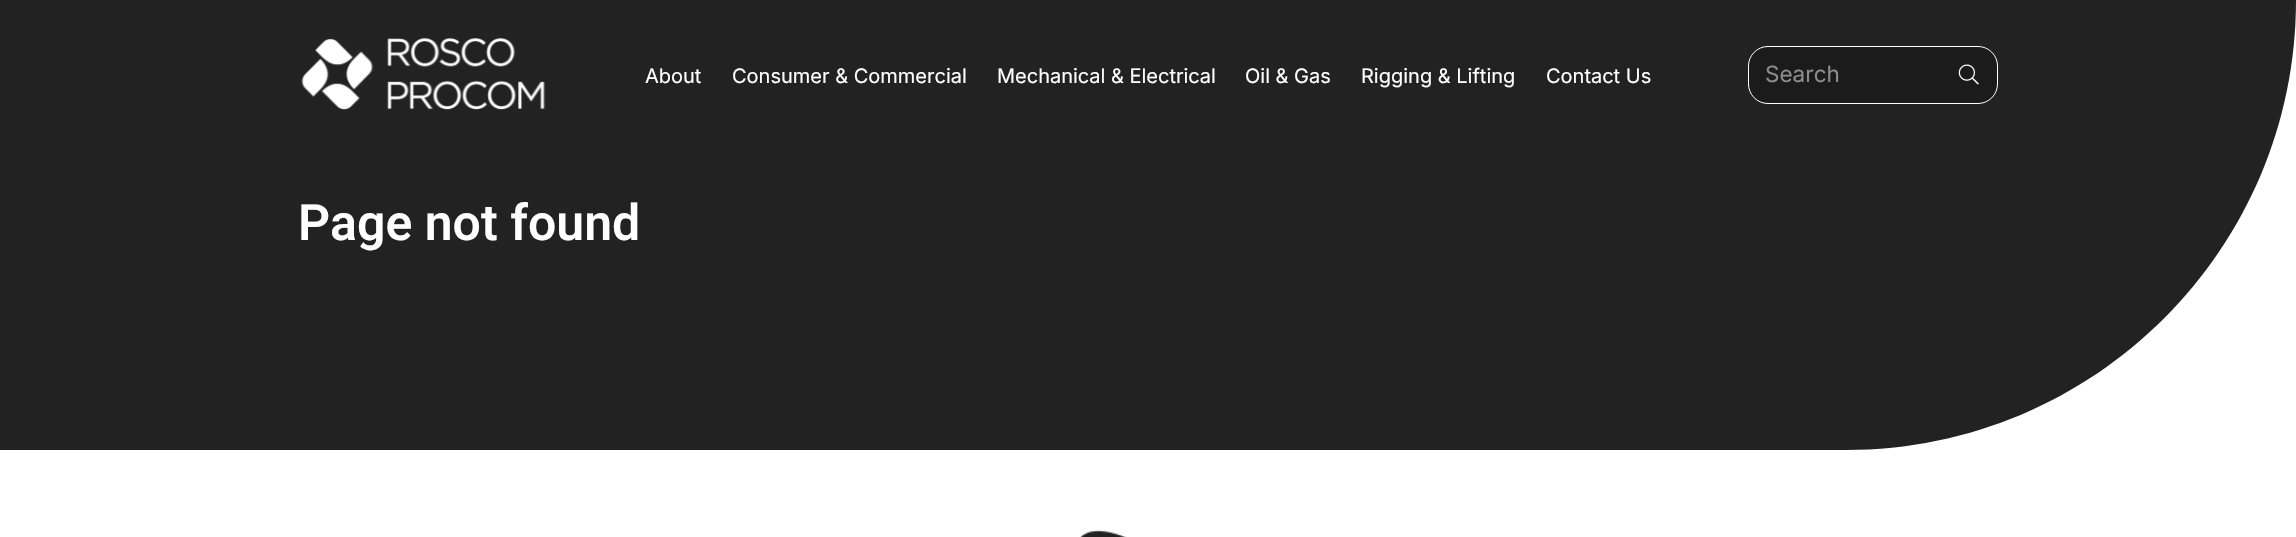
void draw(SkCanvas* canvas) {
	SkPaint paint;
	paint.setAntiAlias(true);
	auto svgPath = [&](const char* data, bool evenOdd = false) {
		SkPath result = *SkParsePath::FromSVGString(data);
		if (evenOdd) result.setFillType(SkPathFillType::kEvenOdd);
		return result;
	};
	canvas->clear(0xffffffff);
	paint.setColor(0xff222222);
	canvas->drawPath(svgPath("M0 0H2296C2296 248.5 2094.5 450 1846 450H0Z"), paint);
	canvas->drawImageRect(SkImages::DeferredFromEncodedData(SkData::MakeFromFileName("img1.png")), SkRect::MakeXYWH(301, 38, 245, 72), SkSamplingOptions());
	SkFont f1(fontMgr->matchFamilyStyle("Inter", SkFontStyle::Normal()), 20);
	f1.setSubpixel(true);
	paint.setColor(0xffffffff);
	canvas->drawString("About", 645, 83, f1, paint);
	canvas->drawString("Consumer & Commercial", 732, 83, f1, paint);
	canvas->drawString("Mechanical & Electrical", 997, 83, f1, paint);
	canvas->drawString("Oil & Gas", 1245, 83, f1, paint);
	canvas->drawString("Rigging & Lifting", 1361, 83, f1, paint);
	canvas->drawString("Contact Us", 1546, 83, f1, paint);
	paint.setColor(0xff1b1b1b);
	canvas->drawRoundRect(SkRect::MakeXYWH(1748.5, 46.5, 249, 57), 19.5, 19.5, paint);
	paint.setStroke(true);
	paint.setStrokeWidth(1);
	paint.setColor(0xffffffff);
	canvas->drawRoundRect(SkRect::MakeXYWH(1748.5, 46.5, 249, 57), 19.5, 19.5, paint);
	SkFont f2(fontMgr->matchFamilyStyle("Inter", SkFontStyle::Normal()), 22.5);
	f2.setSubpixel(true);
	paint.setStroke(false);
	paint.setColor(0xff8d8d8d);
	canvas->drawString("Search", 1765, 82, f2, paint);
	canvas->drawImageRect(SkImages::DeferredFromEncodedData(SkData::MakeFromFileName("img2.png")), SkRect::MakeXYWH(1958, 64, 21, 21), SkSamplingOptions());
	SkFont f3(fontMgr->matchFamilyStyle("Heebo", SkFontStyle(600, SkFontStyle::kNormal_Width, SkFontStyle::kUpright_Slant)), 50);
	f3.setSubpixel(true);
	paint.setColor(0xffffffff);
	canvas->drawString("Page not found", 298, 240, f3, paint);
	canvas->drawImageRect(SkImages::DeferredFromEncodedData(SkData::MakeFromFileName("img3.png")), SkRect::MakeXYWH(1080, 530, 47, 7), SkSamplingOptions());
}
